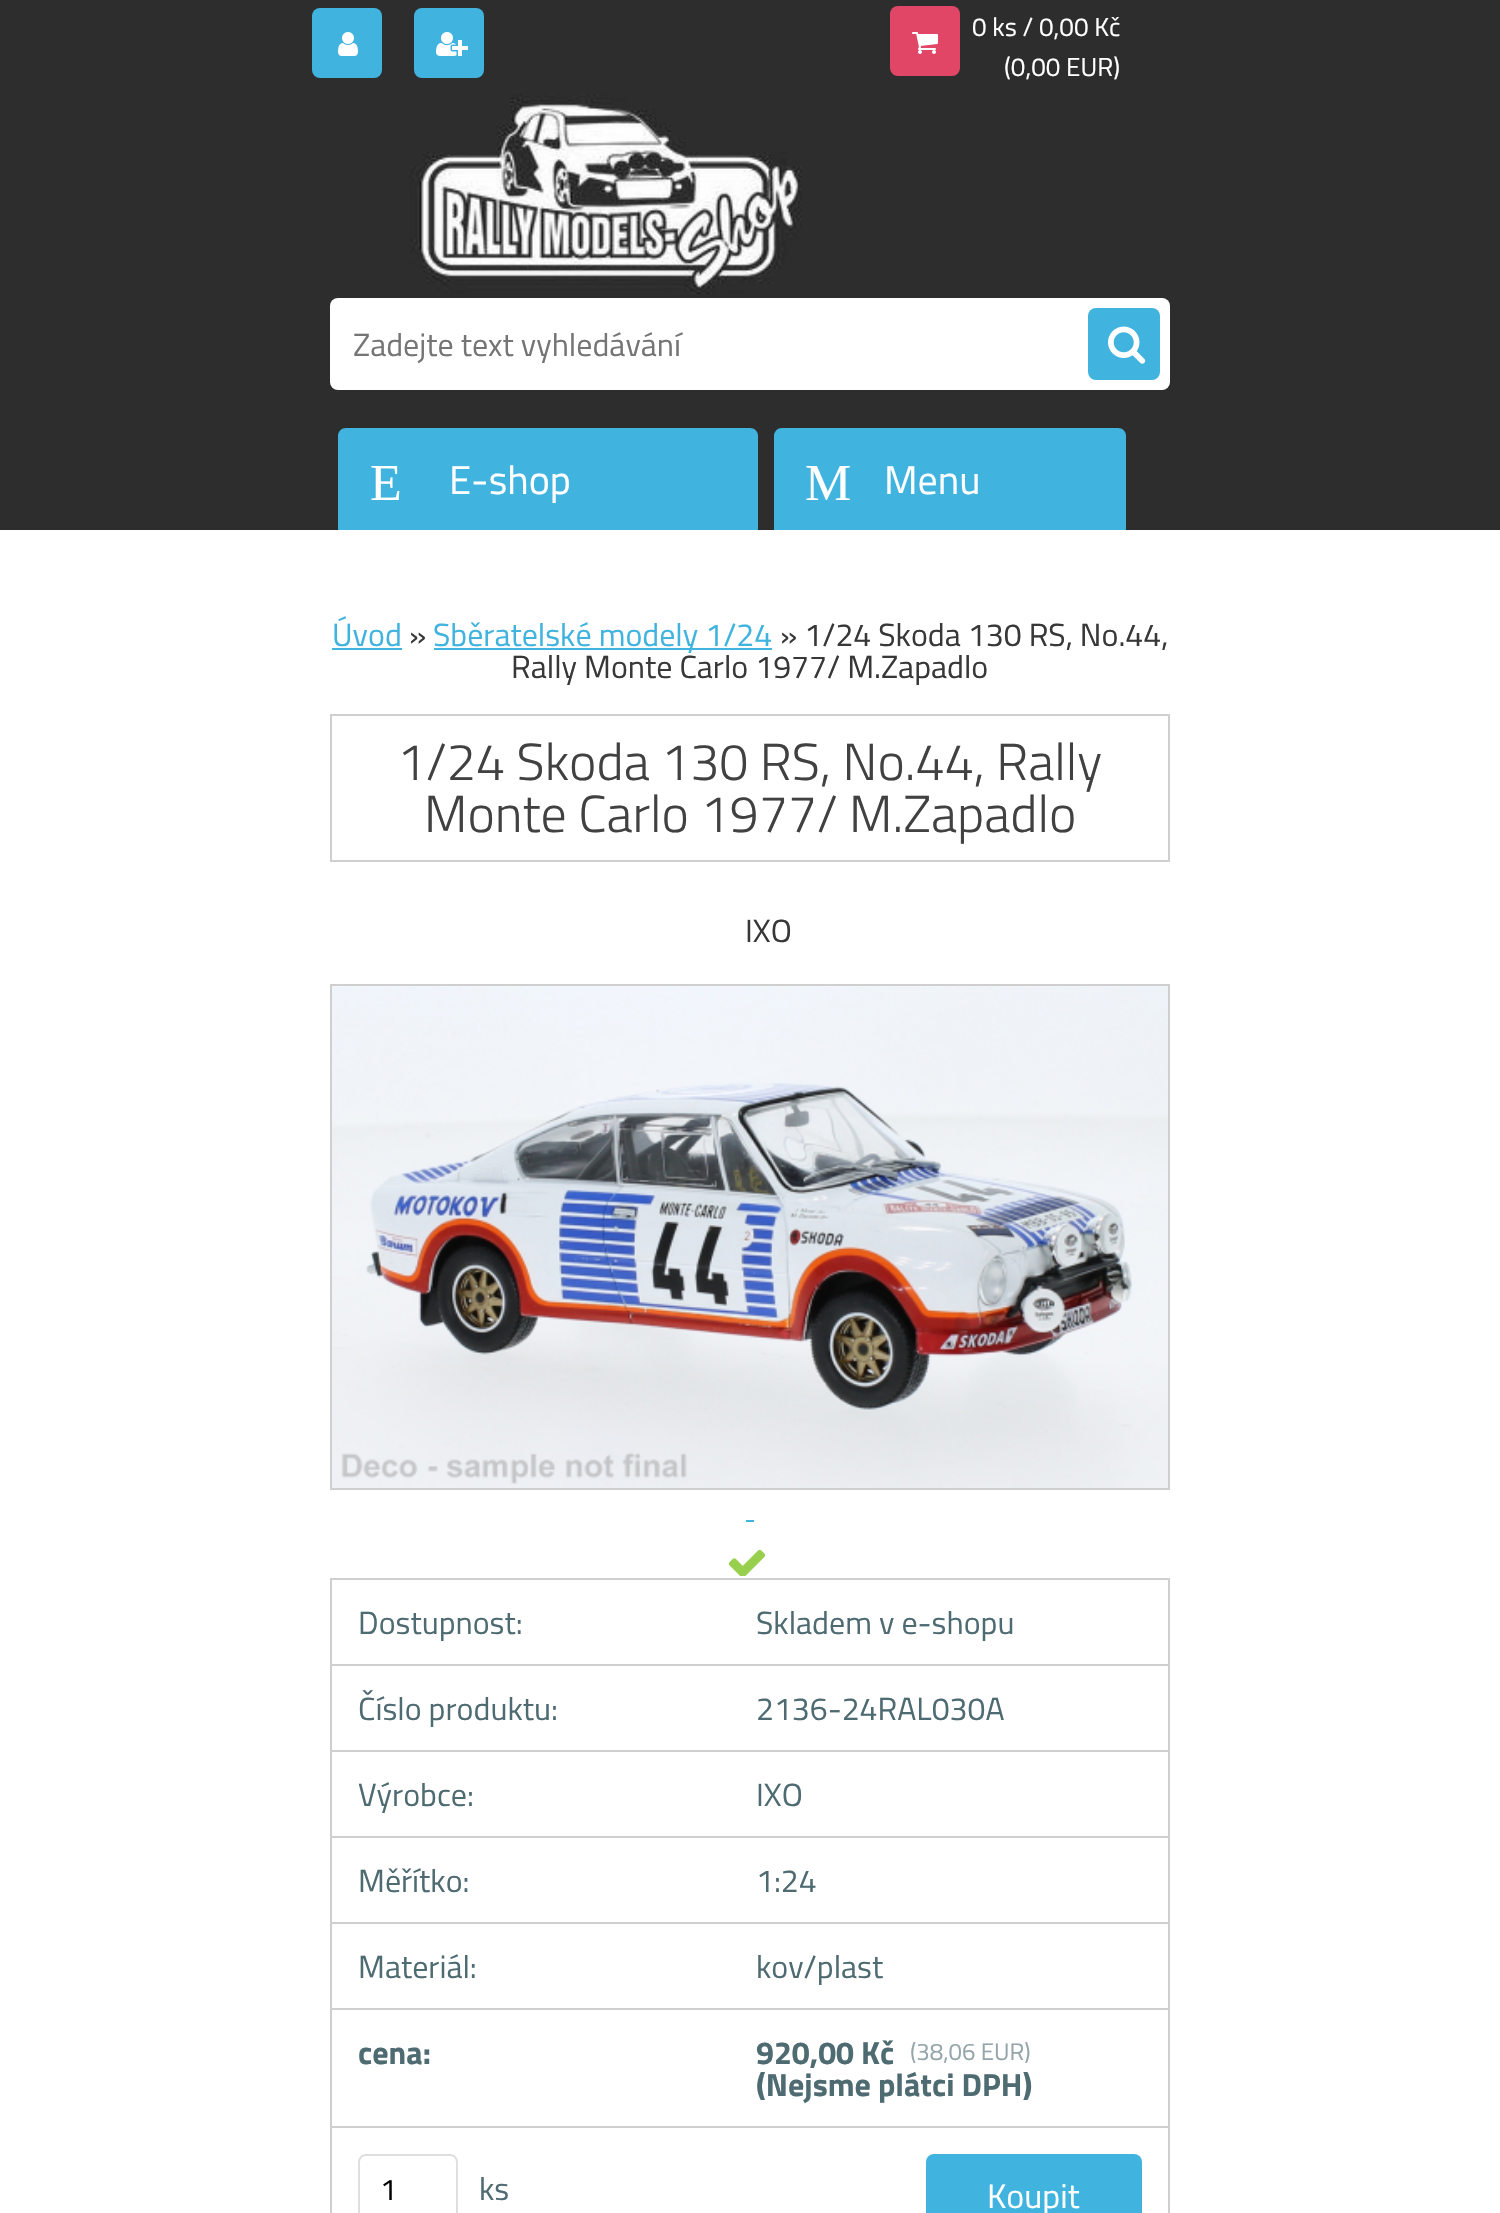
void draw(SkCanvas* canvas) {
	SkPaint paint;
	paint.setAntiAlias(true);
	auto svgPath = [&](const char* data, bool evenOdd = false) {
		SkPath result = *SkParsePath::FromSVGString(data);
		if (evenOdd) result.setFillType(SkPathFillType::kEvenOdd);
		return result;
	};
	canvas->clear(0xffffffff);
	paint.setColor(0xff2d2d2d);
	canvas->drawRect(SkRect::MakeXYWH(0, 0, 1500, 530), paint);
	paint.setColor(0xff40b3df);
	canvas->drawRoundRect(SkRect::MakeXYWH(312, 8, 70, 70), 8, 8, paint);
	canvas->drawImageRect(SkImages::DeferredFromEncodedData(SkData::MakeFromFileName("img1.png")), SkRect::MakeXYWH(338, 32, 20, 24), SkSamplingOptions());
	canvas->drawRoundRect(SkRect::MakeXYWH(414, 8, 70, 70), 8, 8, paint);
	canvas->drawImageRect(SkImages::DeferredFromEncodedData(SkData::MakeFromFileName("img2.png")), SkRect::MakeXYWH(436, 32, 32, 24), SkSamplingOptions());
	paint.setColor(0xffe24666);
	canvas->drawRoundRect(SkRect::MakeXYWH(890, 6, 70, 70), 8, 8, paint);
	canvas->drawImageRect(SkImages::DeferredFromEncodedData(SkData::MakeFromFileName("img3.png")), SkRect::MakeXYWH(912, 32, 26, 22), SkSamplingOptions());
	SkFont f1(fontMgr->matchFamilyStyle("Titillium Web", SkFontStyle::Normal()), 26);
	f1.setSubpixel(true);
	paint.setColor(0xffffffff);
	canvas->drawString("0 ks / 0,00 Kč", 972, 36, f1, paint);
	canvas->drawString("(0,00 EUR)", 1004, 76, f1, paint);
	paint.setColor(0xff40b3df);
	canvas->drawPath(svgPath("M346 428H750C754.5 428 758 431.5 758 436V530H338V436C338 431.5 341.5 428 346 428Z"), paint);
	SkFont f2(fontMgr->matchFamilyStyle("Liberation Serif", SkFontStyle::Normal()), 52);
	f2.setSubpixel(true);
	paint.setColor(0xffffffff);
	canvas->drawString("E", 370, 500, f2, paint);
	SkFont f3(fontMgr->matchFamilyStyle("Titillium Web", SkFontStyle::Normal()), 40);
	f3.setSubpixel(true);
	canvas->drawString("E-shop", 449, 494, f3, paint);
	paint.setColor(0xff40b3df);
	canvas->drawPath(svgPath("M782 428H1118C1122.5 428 1126 431.5 1126 436V530H774V436C774 431.5 777.5 428 782 428Z"), paint);
	paint.setColor(0xffffffff);
	canvas->drawString("M", 805, 500, f2, paint);
	canvas->drawString("Menu", 884, 494, f3, paint);
	SkFont f4(fontMgr->matchFamilyStyle("Titillium Web", SkFontStyle::Normal()), 32);
	f4.setSubpixel(true);
	paint.setColor(0xff40b3df);
	canvas->drawString("Úvod", 332, 646, f4, paint);
	canvas->drawRect(SkRect::MakeXYWH(332, 648, 70, 2), paint);
	paint.setColor(0xff383838);
	canvas->drawString("»", 409, 646, f4, paint);
	paint.setColor(0xff40b3df);
	canvas->drawRect(SkRect::MakeXYWH(434, 648, 338, 2), paint);
	canvas->drawString("Sběratelské modely 1/24", 433, 646, f4, paint);
	paint.setColor(0xff383838);
	canvas->drawString("» 1/24 Skoda 130 RS, No.44,", 780, 646, f4, paint);
	canvas->drawString("Rally Monte Carlo 1977/ M.Zapadlo", 511, 678, f4, paint);
	paint.setStroke(true);
	paint.setStrokeWidth(2);
	paint.setColor(0xffcfcfcf);
	canvas->drawRect(SkRect::MakeXYWH(331, 715, 838, 146), paint);
	SkFont f5(fontMgr->matchFamilyStyle("Titillium Web", SkFontStyle(300, SkFontStyle::kNormal_Width, SkFontStyle::kUpright_Slant)), 52);
	f5.setSubpixel(true);
	paint.setStroke(false);
	paint.setColor(0xff414141);
	canvas->drawString("1/24 Skoda 130 RS, No.44, Rally", 397, 780, f5, paint);
	canvas->drawString("Monte Carlo 1977/ M.Zapadlo", 424, 832, f5, paint);
	paint.setColor(0xff383838);
	canvas->drawString("IXO", 745, 942, f4, paint);
	paint.setStroke(true);
	paint.setColor(0xffcfcfcf);
	canvas->drawRect(SkRect::MakeXYWH(331, 985, 838, 504), paint);
	canvas->drawImageRect(SkImages::DeferredFromEncodedData(SkData::MakeFromFileName("img4.png")), SkRect::MakeXYWH(332, 986, 836, 502), SkSamplingOptions());
	paint.setStroke(false);
	paint.setColor(0xff40b3df);
	canvas->drawRect(SkRect::MakeXYWH(746, 1520, 8, 2), paint);
	canvas->drawImageRect(SkImages::DeferredFromEncodedData(SkData::MakeFromFileName("img5.png")), SkRect::MakeXYWH(728, 1549, 38, 27), SkSamplingOptions());
	paint.setColor(0xffcfcfcf);
	canvas->drawRect(SkRect::MakeXYWH(330, 1578, 840, 2), paint);
	canvas->drawRect(SkRect::MakeXYWH(1168, 1578, 2, 635), paint);
	canvas->drawRect(SkRect::MakeXYWH(330, 1578, 2, 635), paint);
	paint.setColor(0xff4f6b72);
	canvas->drawString("Dostupnost:", 358, 1634, f4, paint);
	canvas->drawString("Skladem v e-shopu", 756, 1634, f4, paint);
	paint.setColor(0xffcfcfcf);
	canvas->drawRect(SkRect::MakeXYWH(330, 1664, 840, 2), paint);
	paint.setColor(0xff4f6b72);
	canvas->drawString("Číslo produktu:", 358, 1720, f4, paint);
	canvas->drawString("2136-24RAL030A", 756, 1720, f4, paint);
	paint.setColor(0xffcfcfcf);
	canvas->drawRect(SkRect::MakeXYWH(330, 1750, 840, 2), paint);
	paint.setColor(0xff4f6b72);
	canvas->drawString("Výrobce:", 358, 1806, f4, paint);
	canvas->drawString("IXO", 756, 1806, f4, paint);
	paint.setColor(0xffcfcfcf);
	canvas->drawRect(SkRect::MakeXYWH(330, 1836, 840, 2), paint);
	paint.setColor(0xff4f6b72);
	canvas->drawString("Měřítko:", 358, 1892, f4, paint);
	canvas->drawString("1:24", 756, 1892, f4, paint);
	paint.setColor(0xffcfcfcf);
	canvas->drawRect(SkRect::MakeXYWH(330, 1922, 840, 2), paint);
	paint.setColor(0xff4f6b72);
	canvas->drawString("Materiál:", 358, 1978, f4, paint);
	canvas->drawString("kov/plast", 756, 1978, f4, paint);
	paint.setColor(0xffcfcfcf);
	canvas->drawRect(SkRect::MakeXYWH(330, 2008, 840, 2), paint);
	SkFont f6(fontMgr->matchFamilyStyle("Titillium Web", SkFontStyle::Bold()), 32);
	f6.setSubpixel(true);
	paint.setColor(0xff4f6b72);
	canvas->drawString("cena:", 358, 2064, f6, paint);
	canvas->drawString("920,00 Kč", 756, 2064, f6, paint);
	SkFont f7(fontMgr->matchFamilyStyle("Titillium Web", SkFontStyle::Normal()), 24);
	f7.setSubpixel(true);
	paint.setColor(0xff95a6aa);
	canvas->drawString("(38,06 EUR)", 910, 2060, f7, paint);
	paint.setColor(0xff4f6b72);
	canvas->drawString("(Nejsme plátci DPH)", 756, 2096, f6, paint);
	paint.setColor(0xffcfcfcf);
	canvas->drawRect(SkRect::MakeXYWH(330, 2126, 840, 2), paint);
	paint.setStroke(true);
	paint.setColor(0xffdfdfdf);
	canvas->drawRoundRect(SkRect::MakeXYWH(359, 2155, 98, 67), 7, 7, paint);
	SkFont f8(fontMgr->matchFamilyStyle("Titillium Web", SkFontStyle::Normal()), 30);
	f8.setSubpixel(true);
	paint.setStroke(false);
	paint.setColor(0xff000000);
	canvas->drawString("1", 380, 2200, f8, paint);
	paint.setColor(0xff4f6b72);
	canvas->drawString("ks", 479, 2200, f4, paint);
	paint.setColor(0xff40b3df);
	canvas->drawRoundRect(SkRect::MakeXYWH(926, 2154, 216, 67), 8, 8, paint);
	SkFont f9(fontMgr->matchFamilyStyle("Titillium Web", SkFontStyle::Normal()), 34);
	f9.setSubpixel(true);
	paint.setColor(0xffffffff);
	canvas->drawString("Koupit", 987, 2208, f9, paint);
	canvas->drawImageRect(SkImages::DeferredFromEncodedData(SkData::MakeFromFileName("img6.png")), SkRect::MakeXYWH(409, 94, 393, 200), SkSamplingOptions());
	canvas->drawRoundRect(SkRect::MakeXYWH(330, 298, 840, 92), 8, 8, paint);
	paint.setColor(0xff757575);
	canvas->drawString("Zadejte text vyhledávání", 353, 356, f4, paint);
	paint.setColor(0xff40b3df);
	canvas->drawRoundRect(SkRect::MakeXYWH(1088, 308, 72, 72), 8, 8, paint);
	canvas->drawImageRect(SkImages::DeferredFromEncodedData(SkData::MakeFromFileName("img7.png")), SkRect::MakeXYWH(1108, 326, 38, 38), SkSamplingOptions());
}
